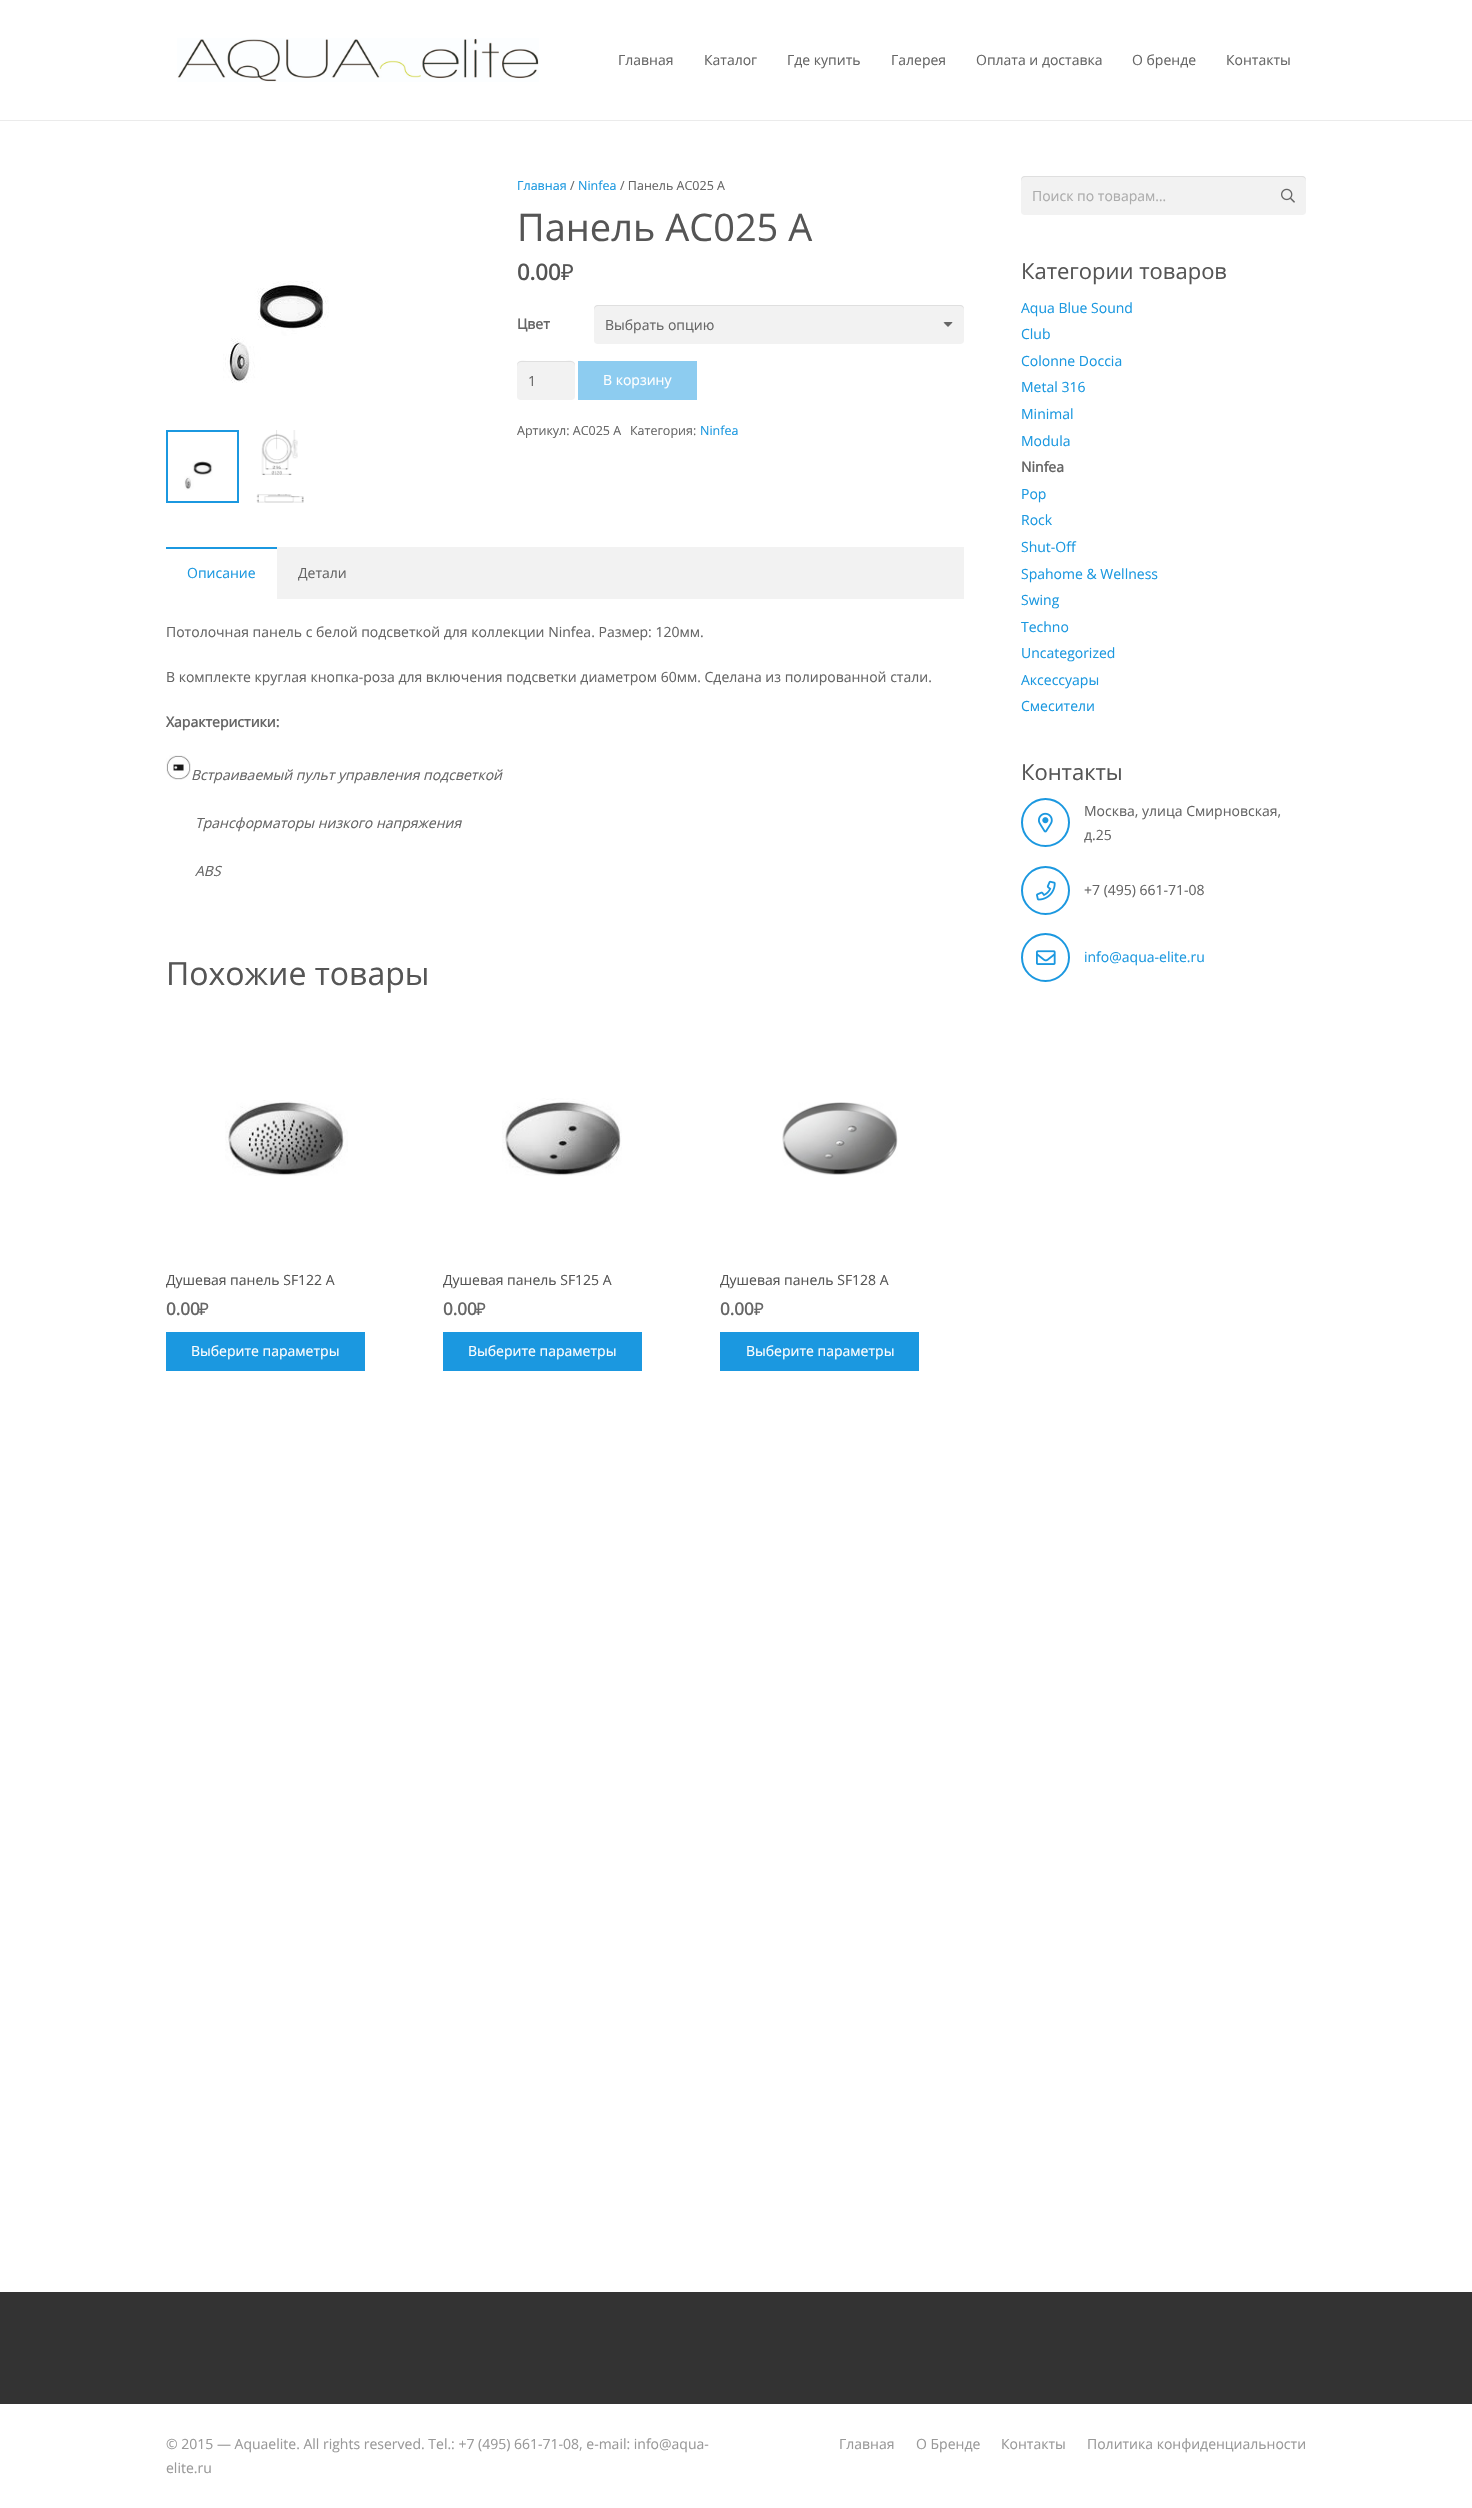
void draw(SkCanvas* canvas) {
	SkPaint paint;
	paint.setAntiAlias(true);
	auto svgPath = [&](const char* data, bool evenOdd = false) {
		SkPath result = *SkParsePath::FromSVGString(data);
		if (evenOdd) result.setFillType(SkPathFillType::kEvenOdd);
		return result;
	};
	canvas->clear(0xffffffff);
	paint.setColor(0xffebebeb);
	canvas->drawRect(SkRect::MakeXYWH(0, 120, 1472, 1), paint);
	canvas->drawImageRect(SkImages::DeferredFromEncodedData(SkData::MakeFromFileName("img1.png")), SkRect::MakeXYWH(177, 38, 362, 44), SkSamplingOptions());
	SkFont f1(fontMgr->matchFamilyStyle("Open Sans", SkFontStyle::Normal()), 14);
	f1.setSubpixel(true);
	paint.setColor(0xff666666);
	canvas->drawString("Главная", 618, 65, f1, paint);
	canvas->drawString("Каталог", 704, 65, f1, paint);
	canvas->drawString("Где купить", 787, 65, f1, paint);
	canvas->drawString("Галерея", 891, 65, f1, paint);
	canvas->drawString("Оплата и доставка", 976, 65, f1, paint);
	canvas->drawString("О бренде", 1132, 65, f1, paint);
	canvas->drawString("Контакты", 1226, 65, f1, paint);
	canvas->drawImageRect(SkImages::DeferredFromEncodedData(SkData::MakeFromFileName("img2.png")), SkRect::MakeXYWH(223, 281, 106, 102), SkSamplingOptions());
	paint.setStroke(true);
	paint.setStrokeWidth(2);
	paint.setColor(0xff1b98e0);
	canvas->drawRect(SkRect::MakeXYWH(167, 431, 71, 71), paint);
	canvas->drawImageRect(SkImages::DeferredFromEncodedData(SkData::MakeFromFileName("img3.png")), SkRect::MakeXYWH(184, 461, 29, 29), SkSamplingOptions());
	canvas->drawImageRect(SkImages::DeferredFromEncodedData(SkData::MakeFromFileName("img4.png")), SkRect::MakeXYWH(256, 430, 48, 73), SkSamplingOptions());
	SkFont f2(fontMgr->matchFamilyStyle("Open Sans", SkFontStyle::Normal()), 12.5);
	f2.setSubpixel(true);
	paint.setStroke(false);
	canvas->drawString("Главная", 517, 190, f2, paint);
	paint.setColor(0xff666666);
	canvas->drawString("/", 570, 190, f2, paint);
	paint.setColor(0xff1b98e0);
	canvas->drawString("Ninfea", 578, 190, f2, paint);
	paint.setColor(0xff666666);
	canvas->drawString("/ Панель AC025 A", 620, 190, f2, paint);
	SkFont f3(fontMgr->matchFamilyStyle("Open Sans", SkFontStyle::Normal()), 38);
	f3.setSubpixel(true);
	paint.setColor(0xff555555);
	canvas->drawString("Панель AC025 A", 517, 241, f3, paint);
	SkFont f4(fontMgr->matchFamilyStyle("Open Sans", SkFontStyle::Bold()), 22);
	f4.setSubpixel(true);
	canvas->drawString("0.00", 517, 280, f4, paint);
	SkFont f5(fontMgr->matchFamilyStyle("Noto Sans", SkFontStyle::Normal()), 22);
	f5.setSubpixel(true);
	canvas->drawString("₽", 561, 280, f5, paint);
	SkFont f6(fontMgr->matchFamilyStyle("Open Sans", SkFontStyle::Bold()), 14);
	f6.setSubpixel(true);
	paint.setColor(0xff666666);
	canvas->drawString("Цвет", 517, 329, f6, paint);
	paint.setColor(0xfff2f2f2);
	canvas->drawRoundRect(SkRect::MakeXYWH(594, 305, 370, 39), 4, 4, paint);
	paint.setColor(0x14000000);
	canvas->drawPath(svgPath("M598 306H960C962 306 964 308 964 310C964 307 963 305 960 305H598C595 305 594 307 594 310C594 308 596 306 598 306Z"), paint);
	paint.setColor(0xff666666);
	canvas->drawString("Выбрать опцию", 605, 330, f1, paint);
	canvas->drawPath(svgPath("M945 322L943.5 322.5L948 327L952.5 322.5L952 322Z"), paint);
	paint.setColor(0xfff2f2f2);
	canvas->drawRoundRect(SkRect::MakeXYWH(517, 361, 58, 39), 4, 4, paint);
	paint.setColor(0x14000000);
	canvas->drawPath(svgPath("M521 362H571C573 362 575 364 575 366C575 359 568 361 563 361H529C524 361 517 359 517 366C517 364 519 362 521 362Z"), paint);
	paint.setColor(0xff666666);
	canvas->drawString("1", 528, 386, f1, paint);
	paint.setColor(0xff8dccf0);
	canvas->drawRect(SkRect::MakeXYWH(578, 361, 119, 39), paint);
	paint.setColor(0xffffffff);
	canvas->drawString("В корзину", 603, 385, f1, paint);
	paint.setColor(0xff666666);
	canvas->drawString("Артикул: AC025 A", 517, 435, f2, paint);
	canvas->drawString("Категория:", 630, 435, f2, paint);
	paint.setColor(0xff1b98e0);
	canvas->drawString("Ninfea", 700, 435, f2, paint);
	paint.setColor(0xfff2f2f2);
	canvas->drawRect(SkRect::MakeXYWH(277, 547, 687, 52), paint);
	paint.setColor(0xff1b98e0);
	canvas->drawRect(SkRect::MakeXYWH(166, 547, 111, 2), paint);
	canvas->drawString("Описание", 187, 578, f1, paint);
	paint.setColor(0xff666666);
	canvas->drawString("Детали", 298, 578, f1, paint);
	canvas->drawString("Потолочная панель с белой подсветкой для коллекции Ninfea. Размер: 120мм.", 166, 637, f1, paint);
	canvas->drawString("В комплекте круглая кнопка-роза для включения подсветки диаметром 60мм. Сделана из полированной стали.", 166, 682, f1, paint);
	canvas->drawString("Характеристики:", 166, 727, f6, paint);
	canvas->drawImageRect(SkImages::DeferredFromEncodedData(SkData::MakeFromFileName("img5.png")), SkRect::MakeXYWH(166, 755, 25, 25), SkSamplingOptions());
	SkFont f7(fontMgr->matchFamilyStyle("Open Sans", SkFontStyle::Italic()), 14);
	f7.setSubpixel(true);
	canvas->drawString("Встраиваемый пульт управления подсветкой", 191, 780, f7, paint);
	canvas->drawString("Трансформаторы низкого напряжения", 195, 828, f7, paint);
	canvas->drawString("ABS", 195, 876, f7, paint);
	SkFont f8(fontMgr->matchFamilyStyle("Open Sans", SkFontStyle::Normal()), 32);
	f8.setSubpixel(true);
	paint.setColor(0xff555555);
	canvas->drawString("Похожие товары", 166, 985, f8, paint);
	canvas->drawImageRect(SkImages::DeferredFromEncodedData(SkData::MakeFromFileName("img6.png")), SkRect::MakeXYWH(225, 1100, 123, 76), SkSamplingOptions());
	canvas->drawString("Душевая панель SF122 A", 166, 1285, f1, paint);
	SkFont f9(fontMgr->matchFamilyStyle("Open Sans", SkFontStyle::Bold()), 17);
	f9.setSubpixel(true);
	paint.setColor(0xff666666);
	canvas->drawString("0.00", 166, 1315, f9, paint);
	SkFont f10(fontMgr->matchFamilyStyle("Noto Sans", SkFontStyle::Normal()), 17);
	f10.setSubpixel(true);
	canvas->drawString("₽", 199, 1315, f10, paint);
	paint.setColor(0xff1b98e0);
	canvas->drawRect(SkRect::MakeXYWH(166, 1332, 199, 39), paint);
	paint.setColor(0xffffffff);
	canvas->drawString("Выберите параметры", 191, 1356, f1, paint);
	canvas->drawImageRect(SkImages::DeferredFromEncodedData(SkData::MakeFromFileName("img7.png")), SkRect::MakeXYWH(502, 1098, 120, 78), SkSamplingOptions());
	paint.setColor(0xff555555);
	canvas->drawString("Душевая панель SF125 A", 443, 1285, f1, paint);
	paint.setColor(0xff666666);
	canvas->drawString("0.00", 443, 1315, f9, paint);
	canvas->drawString("₽", 476, 1315, f10, paint);
	paint.setColor(0xff1b98e0);
	canvas->drawRect(SkRect::MakeXYWH(443, 1332, 199, 39), paint);
	paint.setColor(0xffffffff);
	canvas->drawString("Выберите параметры", 468, 1356, f1, paint);
	canvas->drawImageRect(SkImages::DeferredFromEncodedData(SkData::MakeFromFileName("img8.png")), SkRect::MakeXYWH(782, 1102, 116, 73), SkSamplingOptions());
	paint.setColor(0xff555555);
	canvas->drawString("Душевая панель SF128 A", 720, 1285, f1, paint);
	paint.setColor(0xff666666);
	canvas->drawString("0.00", 720, 1315, f9, paint);
	canvas->drawString("₽", 754, 1315, f10, paint);
	paint.setColor(0xff1b98e0);
	canvas->drawRect(SkRect::MakeXYWH(720, 1332, 199, 39), paint);
	paint.setColor(0xffffffff);
	canvas->drawString("Выберите параметры", 746, 1356, f1, paint);
	paint.setColor(0xfff2f2f2);
	canvas->drawRoundRect(SkRect::MakeXYWH(1021, 176, 285, 39), 4, 4, paint);
	paint.setColor(0x14000000);
	canvas->drawPath(svgPath("M1025 177H1302C1304 177 1306 179 1306 181C1306 178 1305 176 1302 176H1025C1022 176 1021 178 1021 181C1021 179 1023 177 1025 177Z"), paint);
	paint.setColor(0xffacacac);
	canvas->drawString("Поиск по товарам…", 1032, 201, f1, paint);
	canvas->drawImageRect(SkImages::DeferredFromEncodedData(SkData::MakeFromFileName("img9.png")), SkRect::MakeXYWH(1281, 188, 14, 15), SkSamplingOptions());
	SkFont f11(fontMgr->matchFamilyStyle("Open Sans", SkFontStyle::Normal()), 22);
	f11.setSubpixel(true);
	paint.setColor(0xff555555);
	canvas->drawString("Категории товаров", 1021, 279, f11, paint);
	paint.setColor(0xff1b98e0);
	canvas->drawString("Aqua Blue Sound", 1021, 313, f1, paint);
	canvas->drawString("Club", 1021, 339, f1, paint);
	canvas->drawString("Colonne Doccia", 1021, 366, f1, paint);
	canvas->drawString("Metal 316", 1021, 392, f1, paint);
	canvas->drawString("Minimal", 1021, 419, f1, paint);
	canvas->drawString("Modula", 1021, 446, f1, paint);
	paint.setColor(0xff666666);
	canvas->drawString("Ninfea", 1021, 472, f6, paint);
	paint.setColor(0xff1b98e0);
	canvas->drawString("Pop", 1021, 499, f1, paint);
	canvas->drawString("Rock", 1021, 525, f1, paint);
	canvas->drawString("Shut-Off", 1021, 552, f1, paint);
	canvas->drawString("Spahome & Wellness", 1021, 579, f1, paint);
	canvas->drawString("Swing", 1021, 605, f1, paint);
	canvas->drawString("Techno", 1021, 632, f1, paint);
	canvas->drawString("Uncategorized", 1021, 658, f1, paint);
	canvas->drawString("Аксессуары", 1021, 685, f1, paint);
	canvas->drawString("Смесители", 1021, 711, f1, paint);
	paint.setColor(0xff555555);
	canvas->drawString("Контакты", 1021, 780, f11, paint);
	paint.setStroke(true);
	paint.setColor(0xff1b98e0);
	canvas->drawCircle(1045.5, 822.5, 23.5, paint);
	canvas->drawImageRect(SkImages::DeferredFromEncodedData(SkData::MakeFromFileName("img10.png")), SkRect::MakeXYWH(1038, 812, 15, 21), SkSamplingOptions());
	paint.setStroke(false);
	paint.setColor(0xff666666);
	canvas->drawString("Москва, улица Смирновская,", 1084, 816, f1, paint);
	canvas->drawString("д.25", 1084, 840, f1, paint);
	paint.setStroke(true);
	paint.setColor(0xff1b98e0);
	canvas->drawCircle(1045.5, 890.5, 23.5, paint);
	canvas->drawImageRect(SkImages::DeferredFromEncodedData(SkData::MakeFromFileName("img11.png")), SkRect::MakeXYWH(1036, 880, 20, 21), SkSamplingOptions());
	paint.setStroke(false);
	paint.setColor(0xff666666);
	canvas->drawString("+7 (495) 661-71-08", 1084, 895, f1, paint);
	paint.setStroke(true);
	paint.setColor(0xff1b98e0);
	canvas->drawCircle(1045.5, 957.5, 23.5, paint);
	canvas->drawImageRect(SkImages::DeferredFromEncodedData(SkData::MakeFromFileName("img12.png")), SkRect::MakeXYWH(1036, 950, 20, 15), SkSamplingOptions());
	paint.setStroke(false);
	canvas->drawString("info@aqua-elite.ru", 1084, 962, f1, paint);
	paint.setColor(0xff333333);
	canvas->drawRect(SkRect::MakeXYWH(0, 2292, 1472, 112), paint);
	paint.setColor(0xff999999);
	canvas->drawString("© 2015 — Aquaelite. All rights reserved. Tel.: +7 (495) 661-71-08, e-mail: info@aqua-", 166, 2449, f1, paint);
	canvas->drawString("elite.ru", 166, 2473, f1, paint);
	canvas->drawString("Главная", 839, 2449, f1, paint);
	canvas->drawString("О Бренде", 916, 2449, f1, paint);
	canvas->drawString("Контакты", 1001, 2449, f1, paint);
	canvas->drawString("Политика конфиденциальности", 1087, 2449, f1, paint);
}
